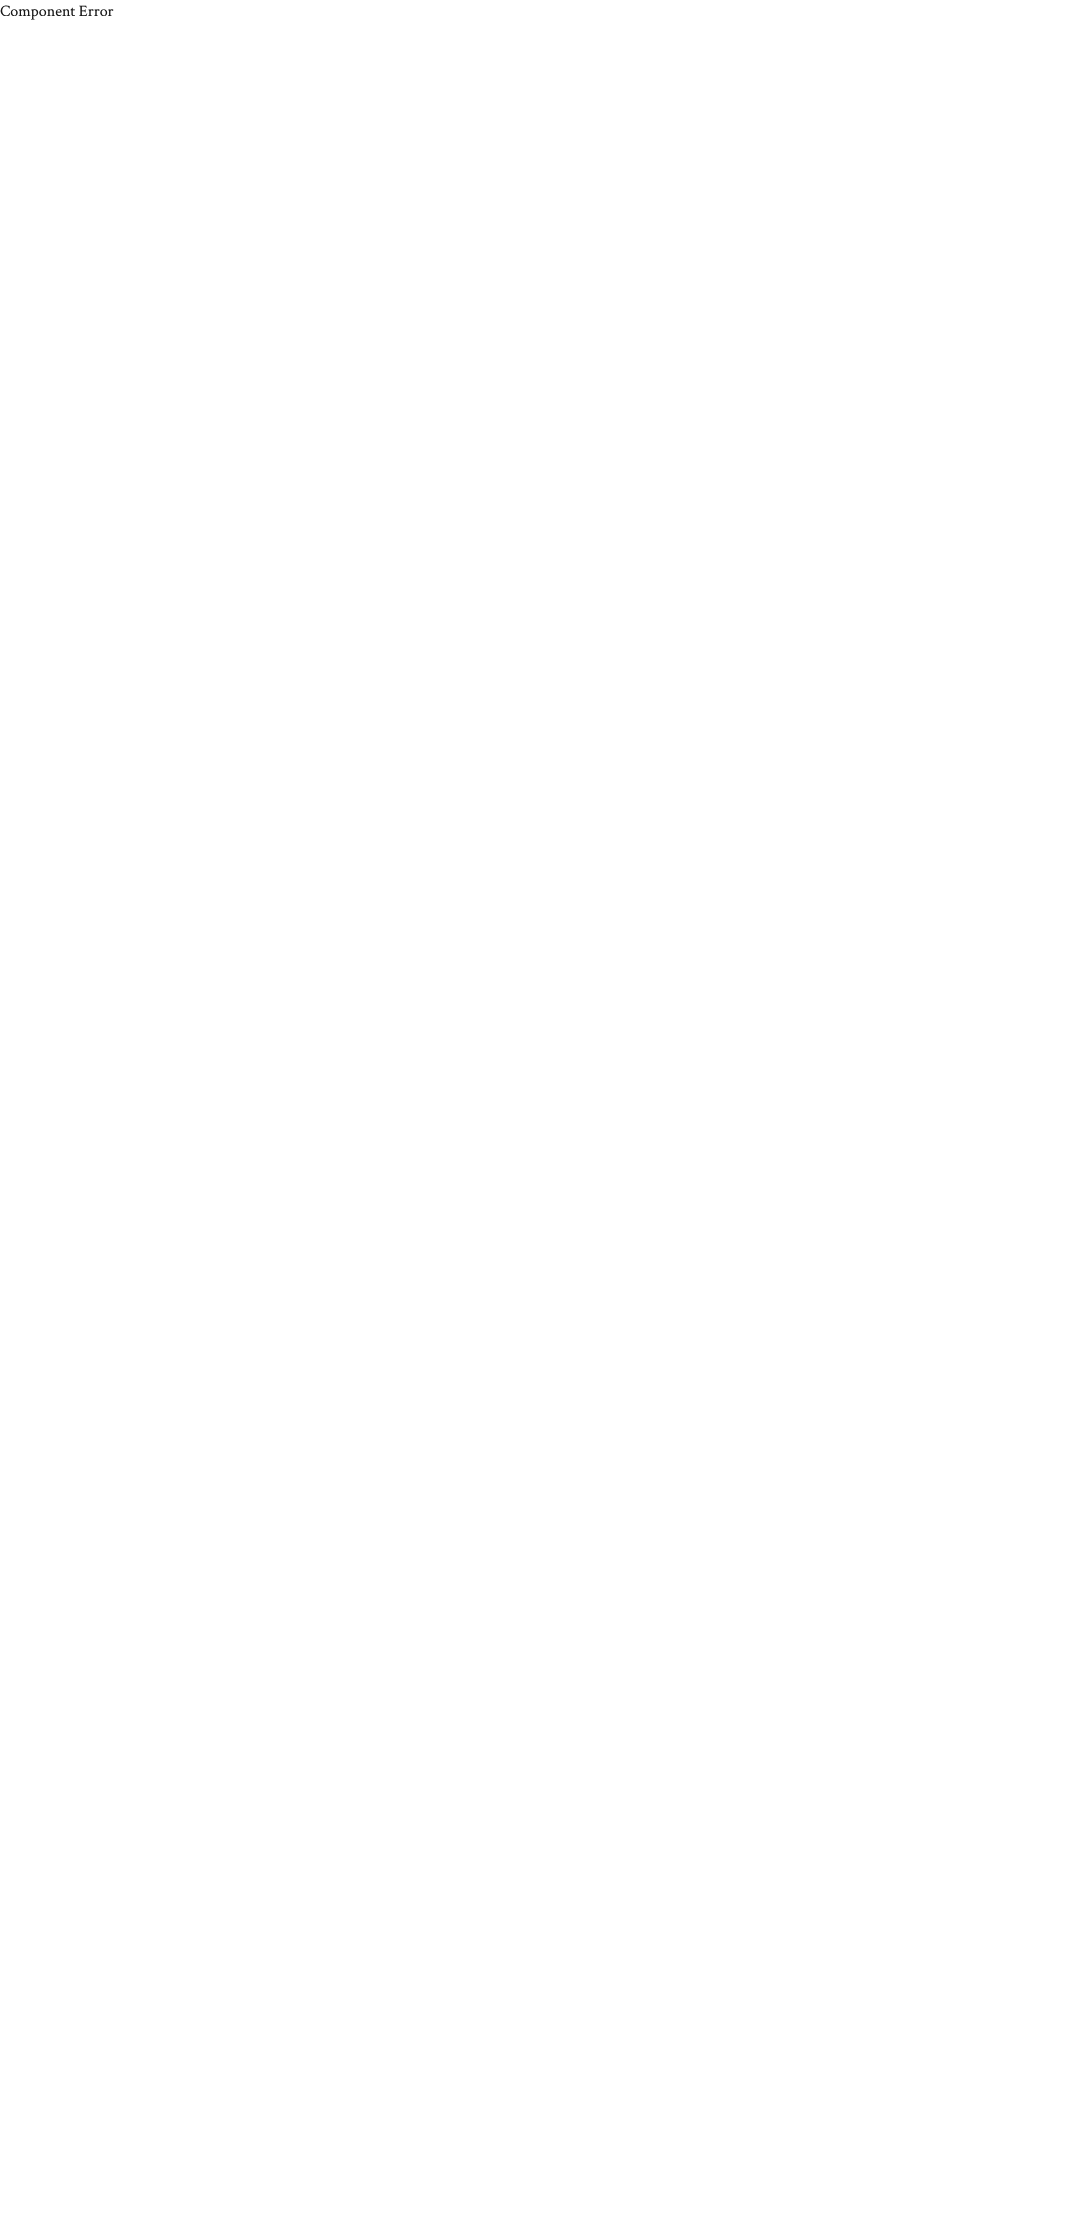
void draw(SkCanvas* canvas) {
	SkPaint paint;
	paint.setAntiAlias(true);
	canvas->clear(0xffffffff);
	SkFont f1(fontMgr->matchFamilyStyle("Crimson Text", SkFontStyle::Normal()), 16);
	f1.setSubpixel(true);
	paint.setColor(0xff191919);
	canvas->drawString("Component Error", 0, 16, f1, paint);
}
